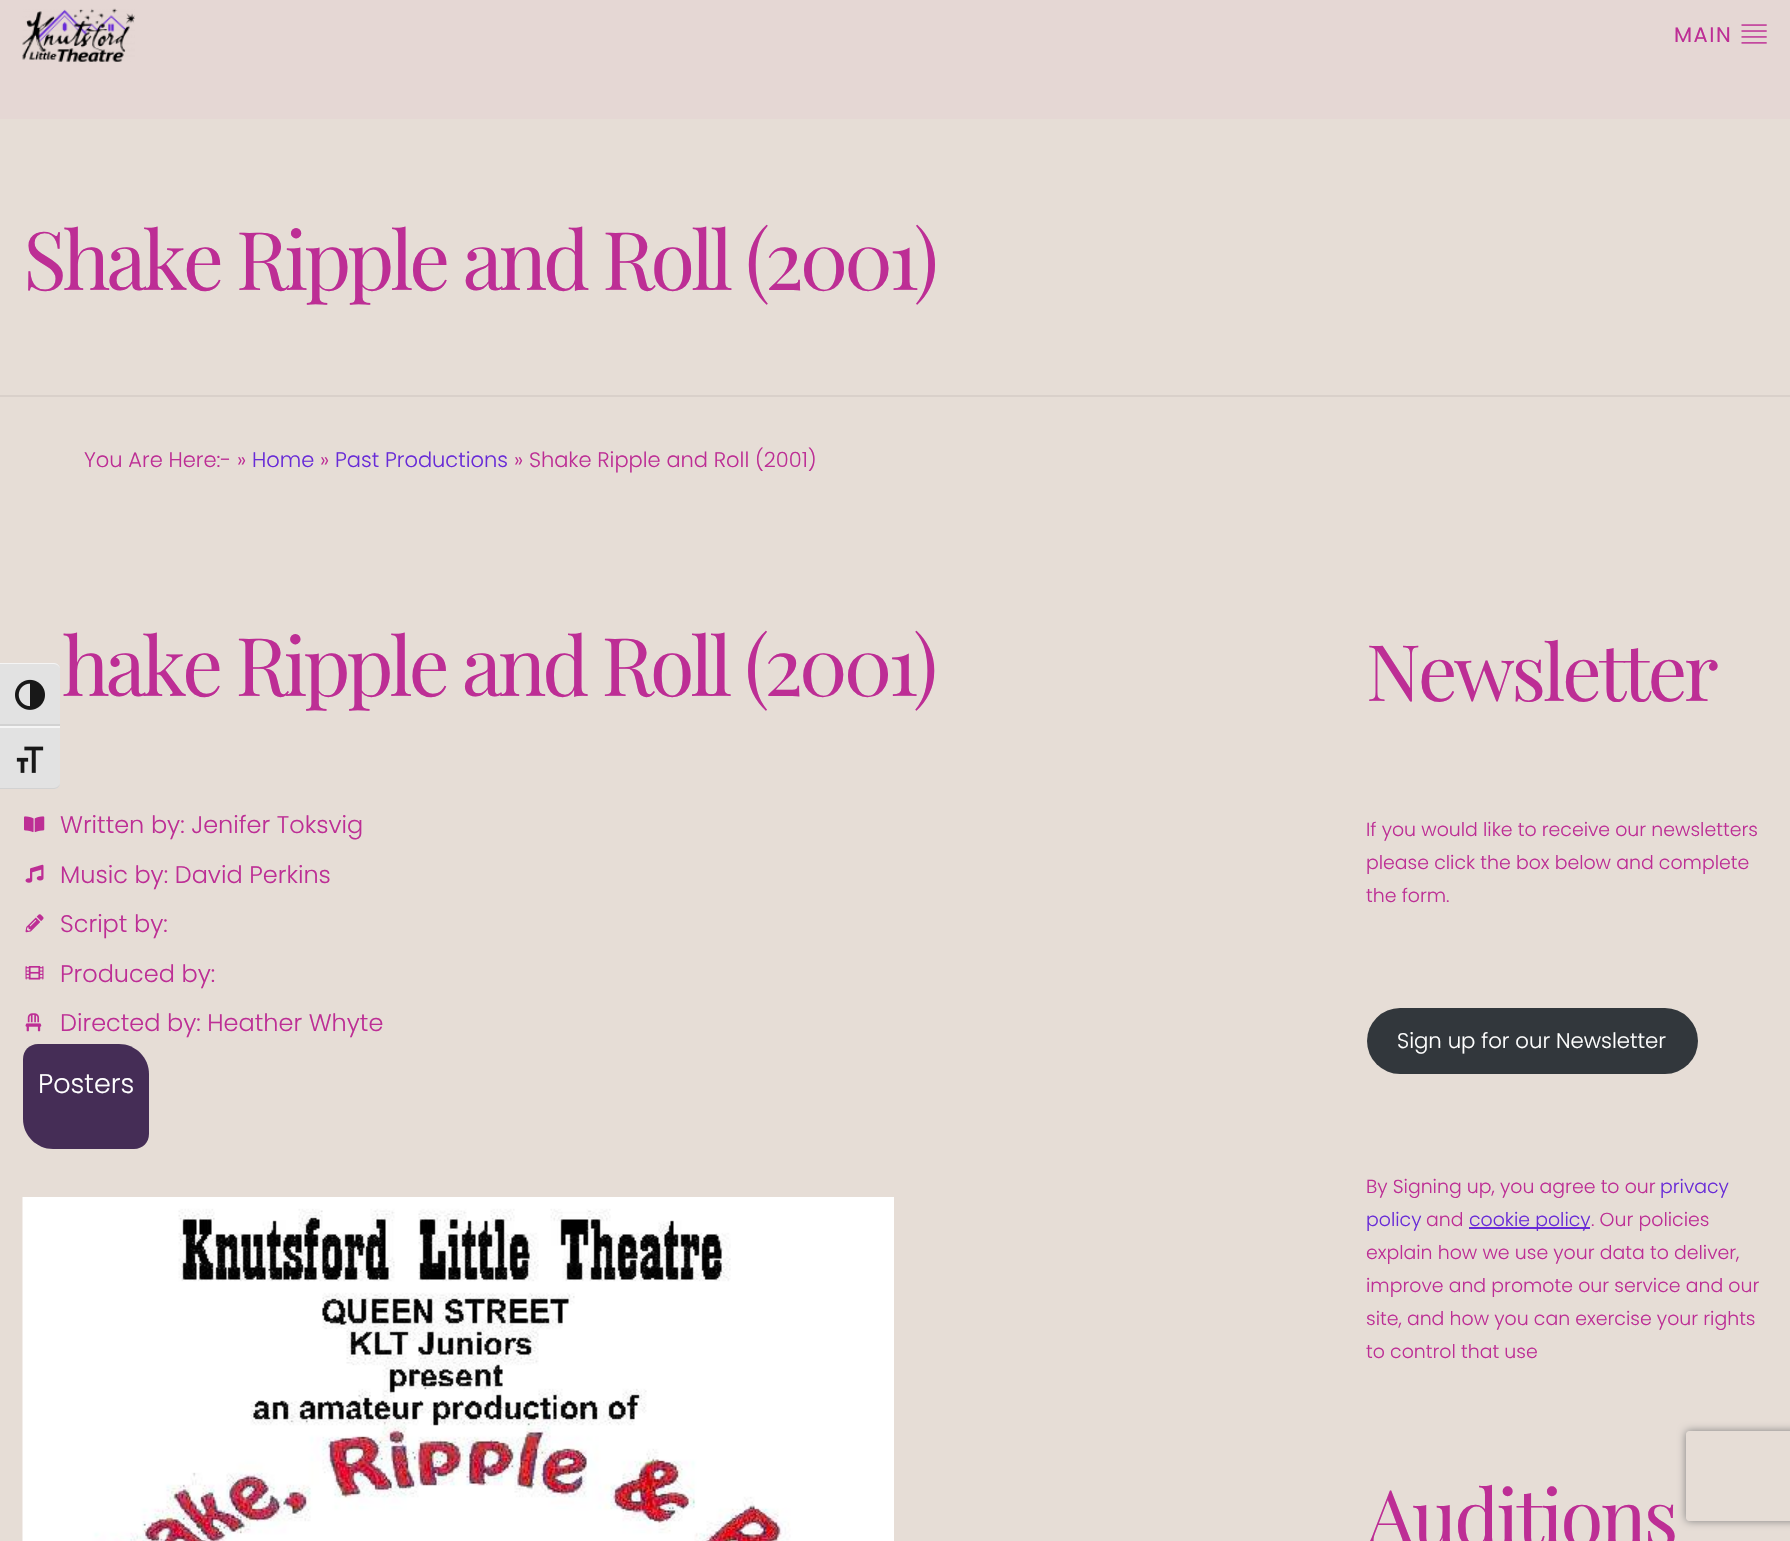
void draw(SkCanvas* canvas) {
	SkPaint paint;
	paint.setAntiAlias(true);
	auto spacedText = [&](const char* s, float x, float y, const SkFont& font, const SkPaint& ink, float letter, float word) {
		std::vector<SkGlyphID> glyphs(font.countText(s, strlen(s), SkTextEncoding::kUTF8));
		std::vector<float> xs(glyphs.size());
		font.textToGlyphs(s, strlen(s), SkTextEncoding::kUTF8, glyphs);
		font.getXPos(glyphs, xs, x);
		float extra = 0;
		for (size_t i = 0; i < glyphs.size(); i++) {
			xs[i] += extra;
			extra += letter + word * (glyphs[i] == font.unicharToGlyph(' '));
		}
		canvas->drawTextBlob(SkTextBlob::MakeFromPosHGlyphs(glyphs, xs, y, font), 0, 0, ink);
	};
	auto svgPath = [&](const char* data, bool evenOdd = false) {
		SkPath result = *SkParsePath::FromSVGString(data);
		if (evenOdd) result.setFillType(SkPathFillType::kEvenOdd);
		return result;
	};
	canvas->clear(0xffe6ddd6);
	paint.setColor(0xffe5d7d4);
	canvas->drawRect(SkRect::MakeXYWH(0, 0, 1790, 119), paint);
	canvas->drawImageRect(SkImages::DeferredFromEncodedData(SkData::MakeFromFileName("img1.png")), SkRect::MakeXYWH(22, 8, 113, 54), SkSamplingOptions());
	SkFont f1(fontMgr->matchFamilyStyle("Poppins", SkFontStyle::Normal()), 21);
	f1.setSubpixel(true);
	paint.setColor(0xffbd2e95);
	spacedText("MAIN", 1674, 42, f1, paint, 1.5, 0);
	canvas->drawImageRect(SkImages::DeferredFromEncodedData(SkData::MakeFromFileName("img2.png")), SkRect::MakeXYWH(1741, 24, 26, 20), SkSamplingOptions());
	SkFont f2(fontMgr->matchFamilyStyle("Playfair Display", SkFontStyle::Normal()), 81);
	f2.setSubpixel(true);
	spacedText("Shake Ripple and Roll (2001)", 23, 290, f2, paint, -4.05, 0);
	paint.setColor(0xffd9d0ca);
	canvas->drawRect(SkRect::MakeXYWH(0, 395, 1790, 2), paint);
	SkFont f3(fontMgr->matchFamilyStyle("Poppins", SkFontStyle(300, SkFontStyle::kNormal_Width, SkFontStyle::kUpright_Slant)), 21);
	f3.setSubpixel(true);
	paint.setColor(0xffbd2e95);
	canvas->drawString("You Are Here:- »", 84, 467, f3, paint);
	paint.setColor(0xff682bd7);
	canvas->drawString("Home", 252, 467, f3, paint);
	paint.setColor(0xffbd2e95);
	canvas->drawString("»", 320, 467, f3, paint);
	paint.setColor(0xff682bd7);
	canvas->drawString("Past Productions", 335, 467, f3, paint);
	paint.setColor(0xffbd2e95);
	canvas->drawString("» Shake Ripple and Roll (2001)", 514, 467, f3, paint);
	spacedText("hake Ripple and Roll (2001)", 62, 696, f2, paint, -4.05, 0);
	canvas->drawImageRect(SkImages::DeferredFromEncodedData(SkData::MakeFromFileName("img3.png")), SkRect::MakeXYWH(24, 816, 21, 17), SkSamplingOptions());
	SkFont f4(fontMgr->matchFamilyStyle("Poppins", SkFontStyle(300, SkFontStyle::kNormal_Width, SkFontStyle::kUpright_Slant)), 24);
	f4.setSubpixel(true);
	canvas->drawString("Written by: Jenifer Toksvig", 60, 833, f4, paint);
	canvas->drawImageRect(SkImages::DeferredFromEncodedData(SkData::MakeFromFileName("img4.png")), SkRect::MakeXYWH(25, 864, 19, 19), SkSamplingOptions());
	canvas->drawString("Music by: David Perkins", 60, 883, f4, paint);
	canvas->drawImageRect(SkImages::DeferredFromEncodedData(SkData::MakeFromFileName("img5.png")), SkRect::MakeXYWH(25, 914, 19, 19), SkSamplingOptions());
	canvas->drawString("Script by:", 60, 932, f4, paint);
	canvas->drawImageRect(SkImages::DeferredFromEncodedData(SkData::MakeFromFileName("img6.png")), SkRect::MakeXYWH(25, 966, 19, 14), SkSamplingOptions());
	canvas->drawString("Produced by:", 60, 982, f4, paint);
	canvas->drawImageRect(SkImages::DeferredFromEncodedData(SkData::MakeFromFileName("img7.png")), SkRect::MakeXYWH(25, 1013, 17, 19), SkSamplingOptions());
	canvas->drawString("Directed by: Heather Whyte", 60, 1031, f4, paint);
	paint.setColor(0xff452d56);
	canvas->drawPath(svgPath("M38 1044H119C135.5 1044 149 1057.5 149 1074V1134C149 1142.5 142.5 1149 134 1149H53C36.5 1149 23 1135.5 23 1119V1059C23 1050.5 29.5 1044 38 1044Z"), paint);
	SkFont f5(fontMgr->matchFamilyStyle("Poppins", SkFontStyle(300, SkFontStyle::kNormal_Width, SkFontStyle::kUpright_Slant)), 27);
	f5.setSubpixel(true);
	paint.setColor(0xffffffff);
	canvas->drawString("Posters", 38, 1093, f5, paint);
	canvas->drawImageRect(SkImages::DeferredFromEncodedData(SkData::MakeFromFileName("img8.png")), SkRect::MakeXYWH(22, 1197, 872, 344), SkSamplingOptions());
	SkFont f6(fontMgr->matchFamilyStyle("Playfair Display", SkFontStyle::Normal()), 78);
	f6.setSubpixel(true);
	paint.setColor(0xffbd2e95);
	spacedText("Newsletter", 1366, 701, f6, paint, -3.1, 0);
	SkFont f7(fontMgr->matchFamilyStyle("Poppins", SkFontStyle(300, SkFontStyle::kNormal_Width, SkFontStyle::kUpright_Slant)), 18.9);
	f7.setSubpixel(true);
	canvas->drawString("If you would like to receive our newsletters", 1366, 836, f7, paint);
	canvas->drawString("please click the box below and complete", 1366, 869, f7, paint);
	canvas->drawString("the form.", 1366, 902, f7, paint);
	paint.setColor(0xff32373c);
	canvas->drawRoundRect(SkRect::MakeXYWH(1367, 1008, 331, 66), 33, 33, paint);
	SkFont f8(fontMgr->matchFamilyStyle("Poppins", SkFontStyle(300, SkFontStyle::kNormal_Width, SkFontStyle::kUpright_Slant)), 21.25);
	f8.setSubpixel(true);
	paint.setColor(0xffffffff);
	canvas->drawString("Sign up for our Newsletter", 1397, 1048, f8, paint);
	paint.setColor(0xffbd2e95);
	canvas->drawString("By Signing up, you agree to our", 1366, 1193, f7, paint);
	paint.setColor(0xff682bd7);
	canvas->drawString("privacy", 1660, 1193, f7, paint);
	canvas->drawString("policy", 1366, 1226, f7, paint);
	paint.setColor(0xffbd2e95);
	canvas->drawString("and", 1426, 1226, f7, paint);
	paint.setColor(0xff682bd7);
	canvas->drawString("cookie policy", 1469, 1226, f7, paint);
	canvas->drawRect(SkRect::MakeXYWH(1469, 1227, 121, 2), paint);
	paint.setColor(0xffbd2e95);
	canvas->drawString(". Our policies", 1591, 1226, f7, paint);
	canvas->drawString("explain how we use your data to deliver,", 1366, 1259, f7, paint);
	canvas->drawString("improve and promote our service and our", 1366, 1292, f7, paint);
	canvas->drawString("site, and how you can exercise your rights", 1366, 1325, f7, paint);
	canvas->drawString("to control that use", 1366, 1358, f7, paint);
	canvas->save();
	canvas->clipPath(svgPath("M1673 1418H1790V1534H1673ZM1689 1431H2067C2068.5 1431 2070 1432.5 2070 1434V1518C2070 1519.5 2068.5 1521 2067 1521H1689C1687.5 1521 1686 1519.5 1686 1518V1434C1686 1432.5 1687.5 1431 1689 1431Z", true), true);
	paint.setColor(0xff808080);
	paint.setMaskFilter(SkMaskFilter::MakeBlur(kNormal_SkBlurStyle, 4));
	canvas->drawRoundRect(SkRect::MakeXYWH(1686, 1431, 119, 90), 3, 3, paint);
	paint.setMaskFilter(nullptr);
	canvas->restore();
	paint.setColor(0xffbd2e95);
	spacedText("Auditions", 1366, 1546, f6, paint, -3.1, 0);
	paint.setColor(0xffe2e2e2);
	canvas->drawPath(svgPath("M0 663H54C57.5 663 60 665.5 60 669V726H0Z"), paint);
	paint.setColor(0xfff5f5f5);
	canvas->drawPath(svgPath("M0 663V664H54C57 664 60 667 60 669C60 666 57 663 54 663Z"), paint);
	paint.setColor(0xffd2d2d2);
	canvas->drawRect(SkRect::MakeXYWH(0, 724, 60, 2), paint);
	canvas->drawImageRect(SkImages::DeferredFromEncodedData(SkData::MakeFromFileName("img9.png")), SkRect::MakeXYWH(15, 679, 30, 31), SkSamplingOptions());
	paint.setColor(0xffe2e2e2);
	canvas->drawPath(svgPath("M0 726H60V783C60 786.5 57.5 789 54 789H0Z"), paint);
	paint.setColor(0xfff5f5f5);
	canvas->drawRect(SkRect::MakeXYWH(0, 726, 60, 2), paint);
	paint.setColor(0xffd2d2d2);
	canvas->drawPath(svgPath("M0 788V789H54C57 789 60 786 60 783C60 785 57 788 54 788Z"), paint);
	canvas->drawImageRect(SkImages::DeferredFromEncodedData(SkData::MakeFromFileName("img10.png")), SkRect::MakeXYWH(16, 746, 28, 27), SkSamplingOptions());
}
